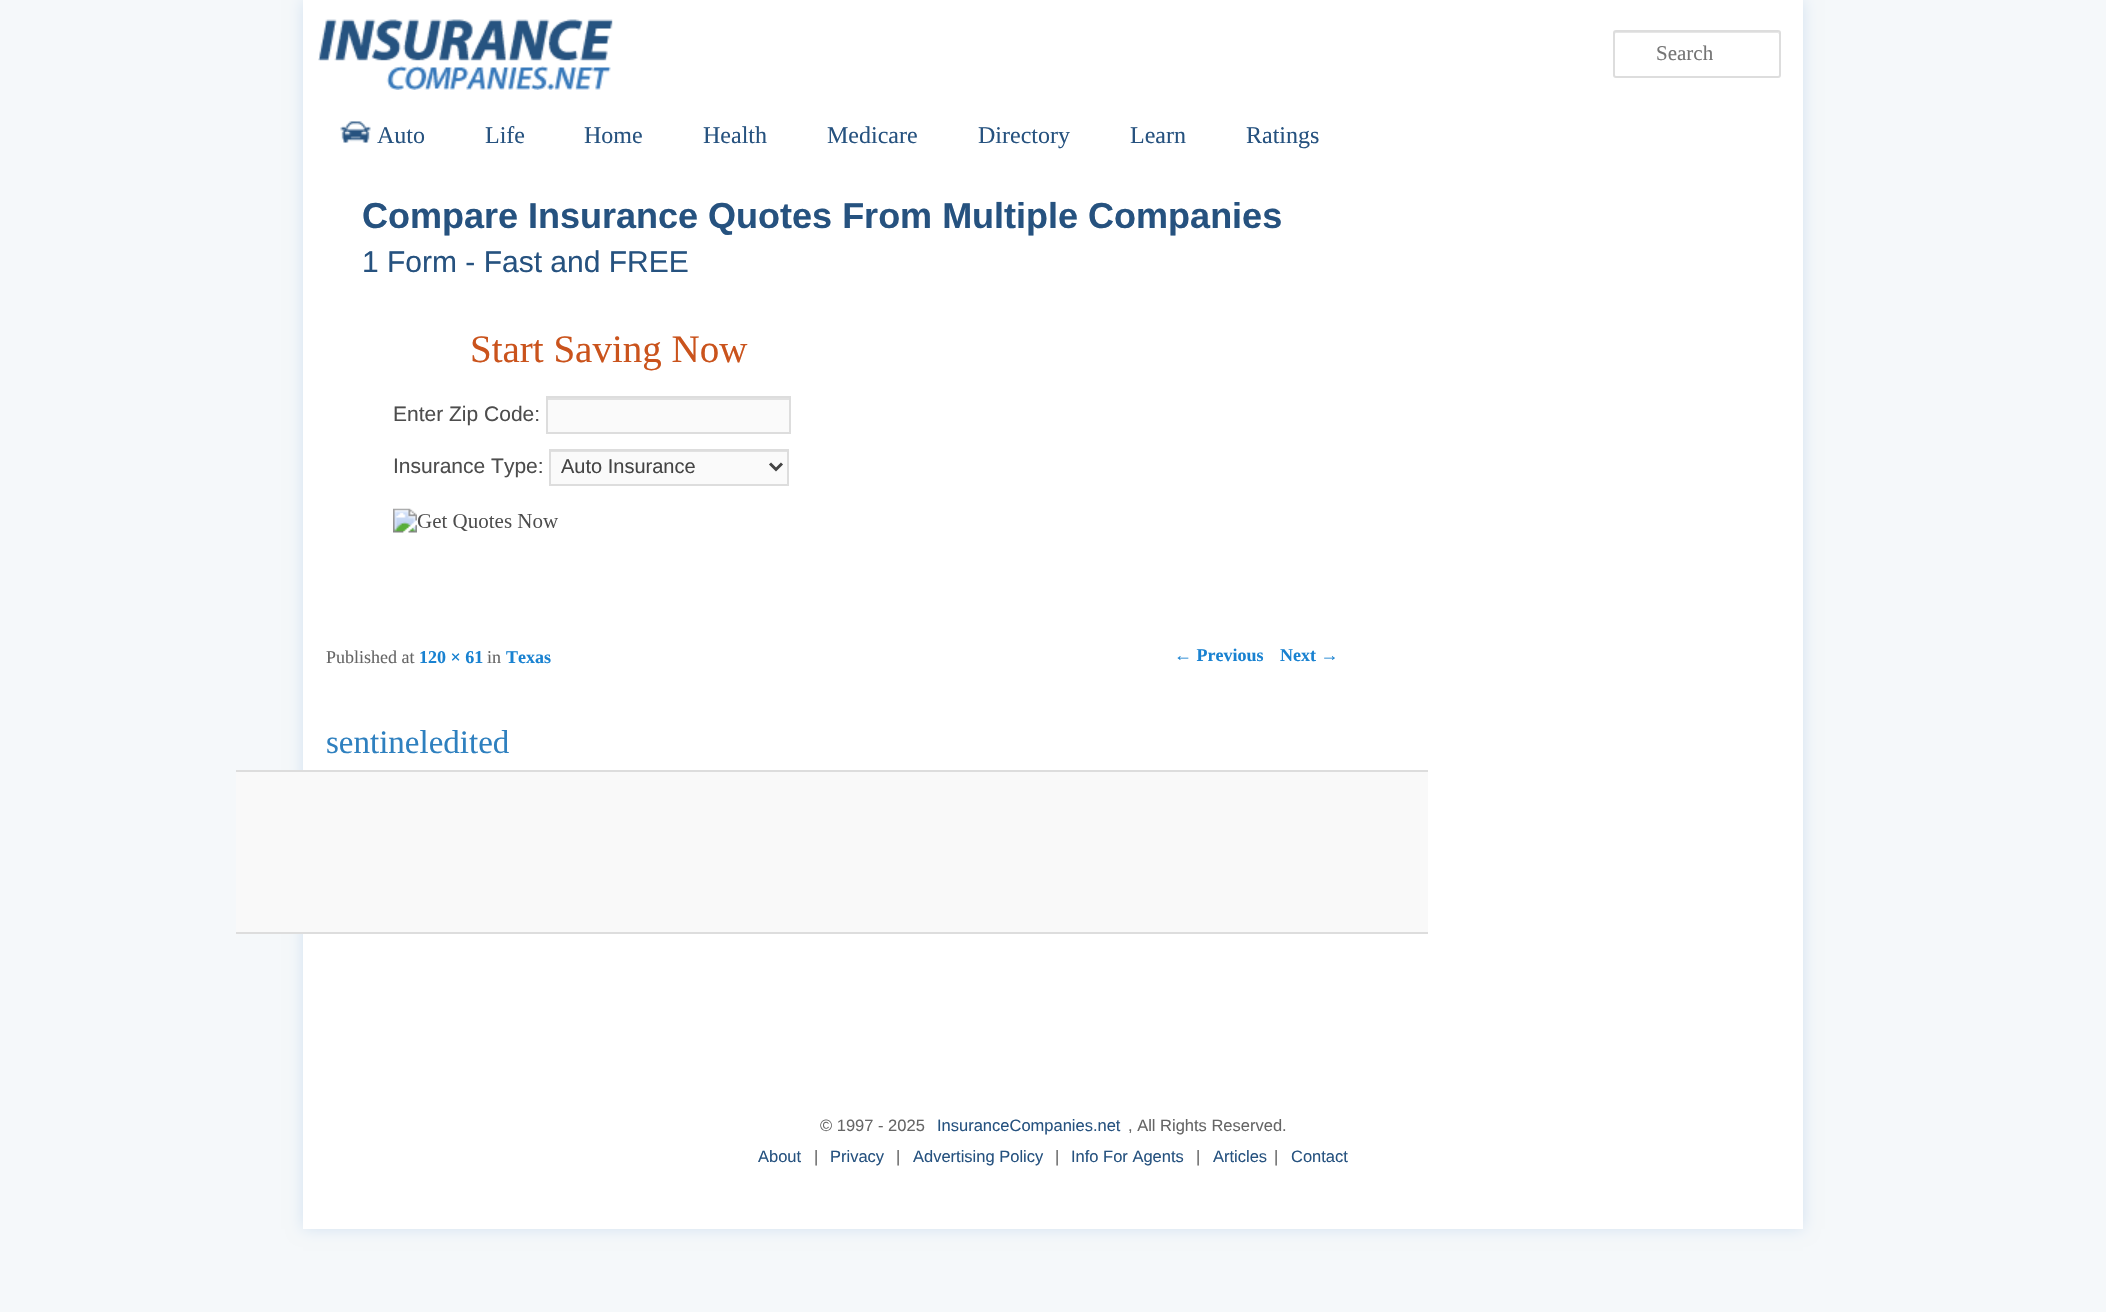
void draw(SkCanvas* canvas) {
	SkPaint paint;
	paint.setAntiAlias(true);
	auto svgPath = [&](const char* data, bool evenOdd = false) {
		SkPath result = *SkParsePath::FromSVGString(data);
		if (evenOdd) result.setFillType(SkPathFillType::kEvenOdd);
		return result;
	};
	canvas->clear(0xfff5f8fa);
	paint.setColor(0xffd3e2f1);
	paint.setMaskFilter(SkMaskFilter::MakeBlur(kNormal_SkBlurStyle, 7.5));
	canvas->drawRect(SkRect::MakeXYWH(303, 0, 1500, 1229), paint);
	paint.setMaskFilter(nullptr);
	paint.setColor(0xffffffff);
	canvas->drawRect(SkRect::MakeXYWH(303, 0, 1500, 1229), paint);
	canvas->drawImageRect(SkImages::DeferredFromEncodedData(SkData::MakeFromFileName("img1.png")), SkRect::MakeXYWH(318, 19, 295, 71), SkSamplingOptions());
	paint.setColor(0xffe6e6e6);
	canvas->drawPath(svgPath("M1616 33H1778L1779 34C1779 33 1779 32 1778 32H1616C1614 32 1614 33 1614 34Z"), paint);
	paint.setStroke(true);
	paint.setStrokeWidth(2);
	paint.setColor(0xffdddddd);
	canvas->drawRoundRect(SkRect::MakeXYWH(1614, 31, 166, 46), 2, 2, paint);
	SkFont f1(fontMgr->matchFamilyStyle("Liberation Serif", SkFontStyle::Normal()), 21);
	f1.setSubpixel(true);
	paint.setStroke(false);
	paint.setColor(0xff757575);
	canvas->drawString("Search", 1656, 60, f1, paint);
	canvas->drawImageRect(SkImages::DeferredFromEncodedData(SkData::MakeFromFileName("img2.png")), SkRect::MakeXYWH(340, 121, 31, 22), SkSamplingOptions());
	SkFont f2(fontMgr->matchFamilyStyle("Liberation Serif", SkFontStyle::Normal()), 24);
	f2.setSubpixel(true);
	paint.setColor(0xff26527f);
	canvas->drawString("Auto", 377, 143, f2, paint);
	canvas->drawString("Life", 485, 143, f2, paint);
	canvas->drawString("Home", 584, 143, f2, paint);
	canvas->drawString("Health", 703, 143, f2, paint);
	canvas->drawString("Medicare", 827, 143, f2, paint);
	canvas->drawString("Directory", 978, 143, f2, paint);
	canvas->drawString("Learn", 1130, 143, f2, paint);
	canvas->drawString("Ratings", 1246, 143, f2, paint);
	SkFont f3(fontMgr->matchFamilyStyle("Liberation Sans", SkFontStyle::Bold()), 36);
	f3.setSubpixel(true);
	canvas->drawString("Compare Insurance Quotes From Multiple Companies", 362, 228, f3, paint);
	SkFont f4(fontMgr->matchFamilyStyle("Liberation Sans", SkFontStyle::Normal()), 30);
	f4.setSubpixel(true);
	canvas->drawString("1 Form - Fast and FREE", 362, 272, f4, paint);
	SkFont f5(fontMgr->matchFamilyStyle("Liberation Serif", SkFontStyle::Normal()), 39);
	f5.setSubpixel(true);
	paint.setColor(0xffca531c);
	canvas->drawString("Start Saving Now", 470, 362, f5, paint);
	SkFont f6(fontMgr->matchFamilyStyle("Liberation Sans", SkFontStyle::Normal()), 21);
	f6.setSubpixel(true);
	paint.setColor(0xff4d4d4d);
	canvas->drawString("Enter Zip Code:", 393, 421, f6, paint);
	paint.setColor(0xfffafafa);
	canvas->drawRect(SkRect::MakeXYWH(548, 400, 241, 32), paint);
	paint.setColor(0xffe1e1e1);
	canvas->drawRect(SkRect::MakeXYWH(548, 398, 241, 2), paint);
	paint.setStroke(true);
	paint.setColor(0xffdddddd);
	canvas->drawRect(SkRect::MakeXYWH(547, 397, 243, 36), paint);
	paint.setStroke(false);
	paint.setColor(0xff4d4d4d);
	canvas->drawString("Insurance Type:", 393, 473, f6, paint);
	paint.setColor(0xfffafafa);
	canvas->drawRect(SkRect::MakeXYWH(551, 452, 236, 32), paint);
	paint.setColor(0xffe1e1e1);
	canvas->drawRect(SkRect::MakeXYWH(551, 451, 237, 1), paint);
	paint.setStroke(true);
	paint.setColor(0xffdddddd);
	canvas->drawRect(SkRect::MakeXYWH(550, 450, 238, 35), paint);
	paint.setStrokeWidth(3);
	paint.setColor(0xff444444);
	canvas->drawPath(svgPath("M770 463.5L776 469.5L782 463.5"), paint);
	SkFont f7(fontMgr->matchFamilyStyle("Liberation Sans", SkFontStyle::Normal()), 20);
	f7.setSubpixel(true);
	paint.setStroke(false);
	canvas->drawString("Auto Insurance", 561, 473, f7, paint);
	canvas->drawImageRect(SkImages::DeferredFromEncodedData(SkData::MakeFromFileName("img3.png")), SkRect::MakeXYWH(393, 508, 166, 25), SkSamplingOptions());
	SkFont f8(fontMgr->matchFamilyStyle("Liberation Serif", SkFontStyle::Normal()), 18);
	f8.setSubpixel(true);
	paint.setColor(0xff666666);
	canvas->drawString("Published at", 326, 663, f8, paint);
	SkFont f9(fontMgr->matchFamilyStyle("Liberation Serif", SkFontStyle::Bold()), 18);
	f9.setSubpixel(true);
	paint.setColor(0xff1982d1);
	canvas->drawString("120 × 61", 419, 663, f9, paint);
	paint.setColor(0xff666666);
	canvas->drawString("in", 487, 663, f8, paint);
	paint.setColor(0xff1982d1);
	canvas->drawString("Texas", 506, 663, f9, paint);
	SkFont f10(fontMgr->matchFamilyStyle("Liberation Serif", SkFontStyle::Normal()), 33);
	f10.setSubpixel(true);
	paint.setColor(0xff2e80bf);
	canvas->drawString("sentineledited", 326, 753, f10, paint);
	paint.setColor(0xfff9f9f9);
	canvas->drawRect(SkRect::MakeXYWH(236, 772, 1192, 160), paint);
	paint.setColor(0xffdddddd);
	canvas->drawRect(SkRect::MakeXYWH(236, 770, 1192, 2), paint);
	canvas->drawRect(SkRect::MakeXYWH(236, 932, 1192, 2), paint);
	paint.setColor(0xff1982d1);
	canvas->drawString("← Previous", 1174, 661, f9, paint);
	canvas->drawString("Next →", 1280, 661, f9, paint);
	SkFont f11(fontMgr->matchFamilyStyle("Liberation Sans", SkFontStyle::Normal()), 16.5);
	f11.setSubpixel(true);
	paint.setColor(0xff666666);
	canvas->drawString("© 1997 - 2025", 820, 1131, f11, paint);
	paint.setColor(0xff26527f);
	canvas->drawString("InsuranceCompanies.net", 937, 1131, f11, paint);
	paint.setColor(0xff666666);
	canvas->drawString(", All Rights Reserved.", 1128, 1131, f11, paint);
	paint.setColor(0xff26527f);
	canvas->drawString("About", 758, 1162, f11, paint);
	paint.setColor(0xff666666);
	canvas->drawString("|", 814, 1162, f11, paint);
	paint.setColor(0xff26527f);
	canvas->drawString("Privacy", 830, 1162, f11, paint);
	paint.setColor(0xff666666);
	canvas->drawString("|", 896, 1162, f11, paint);
	paint.setColor(0xff26527f);
	canvas->drawString("Advertising Policy", 913, 1162, f11, paint);
	paint.setColor(0xff666666);
	canvas->drawString("|", 1055, 1162, f11, paint);
	paint.setColor(0xff26527f);
	canvas->drawString("Info For Agents", 1071, 1162, f11, paint);
	paint.setColor(0xff666666);
	canvas->drawString("|", 1196, 1162, f11, paint);
	paint.setColor(0xff26527f);
	canvas->drawString("Articles", 1213, 1162, f11, paint);
	paint.setColor(0xff666666);
	canvas->drawString("|", 1274, 1162, f11, paint);
	paint.setColor(0xff26527f);
	canvas->drawString("Contact", 1291, 1162, f11, paint);
}
